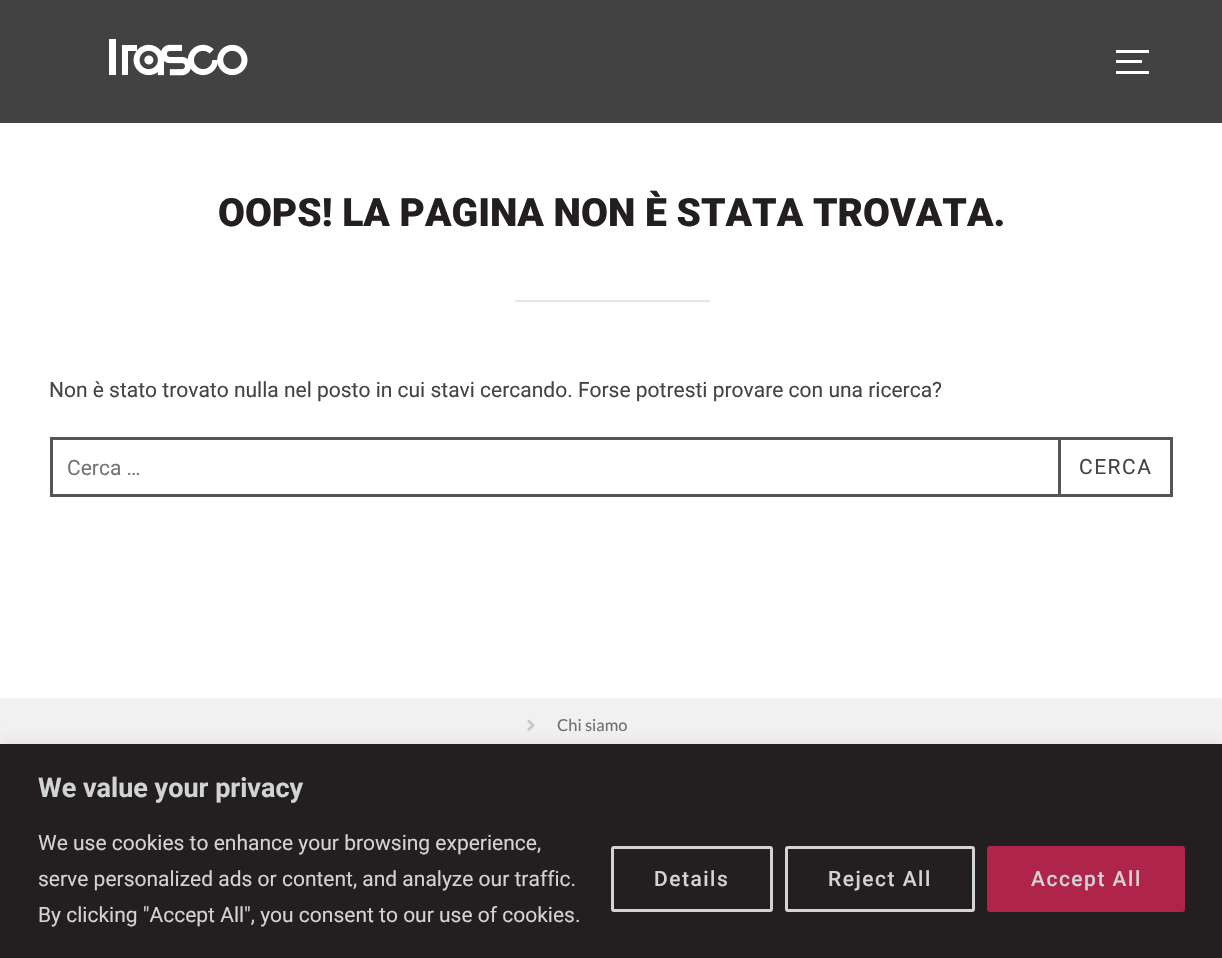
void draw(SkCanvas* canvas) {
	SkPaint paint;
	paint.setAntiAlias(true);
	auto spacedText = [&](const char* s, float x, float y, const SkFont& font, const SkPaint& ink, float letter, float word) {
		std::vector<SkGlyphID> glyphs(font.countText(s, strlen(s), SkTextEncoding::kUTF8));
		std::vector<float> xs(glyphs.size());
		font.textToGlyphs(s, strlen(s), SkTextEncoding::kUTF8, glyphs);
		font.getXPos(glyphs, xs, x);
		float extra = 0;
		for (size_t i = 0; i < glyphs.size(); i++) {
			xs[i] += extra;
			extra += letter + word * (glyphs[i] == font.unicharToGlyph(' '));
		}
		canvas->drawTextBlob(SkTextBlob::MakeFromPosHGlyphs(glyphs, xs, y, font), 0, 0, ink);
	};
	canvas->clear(0xffffffff);
	paint.setColor(0xff424242);
	canvas->drawRect(SkRect::MakeXYWH(0, 0, 1222, 123), paint);
	canvas->drawImageRect(SkImages::DeferredFromEncodedData(SkData::MakeFromFileName("img1.png")), SkRect::MakeXYWH(109, 39, 139, 37), SkSamplingOptions());
	paint.setColor(0xffffffff);
	canvas->drawRect(SkRect::MakeXYWH(1116, 50, 33, 3), paint);
	canvas->drawRect(SkRect::MakeXYWH(1116, 60, 26, 3), paint);
	canvas->drawRect(SkRect::MakeXYWH(1116, 71, 33, 3), paint);
	SkFont f1(fontMgr->matchFamilyStyle("Roboto", SkFontStyle(900, SkFontStyle::kNormal_Width, SkFontStyle::kUpright_Slant)), 39);
	f1.setSubpixel(true);
	paint.setColor(0xff231f20);
	canvas->drawString("OOPS! LA PAGINA NON È STATA TROVATA.", 218, 226, f1, paint);
	paint.setColor(0xffe6e6e6);
	canvas->drawRect(SkRect::MakeXYWH(515, 300, 195, 2), paint);
	SkFont f2(fontMgr->matchFamilyStyle("Roboto", SkFontStyle::Normal()), 21);
	f2.setSubpixel(true);
	paint.setColor(0xff444444);
	canvas->drawString("Non è stato trovato nulla nel posto in cui stavi cercando. Forse potresti provare con una ricerca?", 49, 397, f2, paint);
	paint.setStroke(true);
	paint.setStrokeWidth(3);
	paint.setColor(0xff565555);
	canvas->drawRect(SkRect::MakeXYWH(51.5, 438.5, 1120, 57), paint);
	paint.setStroke(false);
	paint.setColor(0xff757575);
	canvas->drawString("Cerca …", 67, 475, f2, paint);
	paint.setStroke(true);
	paint.setColor(0xff565555);
	canvas->drawRect(SkRect::MakeXYWH(1059.5, 438.5, 112, 57), paint);
	paint.setStroke(false);
	paint.setColor(0xff444444);
	spacedText("CERCA", 1079, 474, f2, paint, 1.5, 0);
	paint.setColor(0xfff1f1f1);
	canvas->drawRect(SkRect::MakeXYWH(0, 698, 1222, 46), paint);
	canvas->drawImageRect(SkImages::DeferredFromEncodedData(SkData::MakeFromFileName("img2.png")), SkRect::MakeXYWH(527, 719, 8, 12), SkSamplingOptions());
	SkFont f3(fontMgr->matchFamilyStyle("Lato", SkFontStyle::Normal()), 16.5);
	f3.setSubpixel(true);
	paint.setColor(0xff6d6e71);
	canvas->drawString("Chi siamo", 557, 731, f3, paint);
	paint.setColor(0x4dacabab);
	paint.setMaskFilter(SkMaskFilter::MakeBlur(kNormal_SkBlurStyle, 7.5));
	canvas->drawRect(SkRect::MakeXYWH(0, 743, 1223, 214), paint);
	paint.setMaskFilter(nullptr);
	paint.setColor(0xff231f20);
	canvas->drawRect(SkRect::MakeXYWH(0, 744, 1222, 214), paint);
	SkFont f4(fontMgr->matchFamilyStyle("Roboto", SkFontStyle::Bold()), 27);
	f4.setSubpixel(true);
	paint.setColor(0xffd1d3d4);
	canvas->drawString("We value your privacy", 38, 797, f4, paint);
	canvas->drawString("We use cookies to enhance your browsing experience,", 38, 850, f2, paint);
	canvas->drawString("serve personalized ads or content, and analyze our traffic.", 38, 886, f2, paint);
	canvas->drawString("By clicking \"Accept All\", you consent to our use of cookies.", 38, 922, f2, paint);
	paint.setStroke(true);
	canvas->drawRoundRect(SkRect::MakeXYWH(612.5, 847.5, 159, 63), 1.5, 1.5, paint);
	SkFont f5(fontMgr->matchFamilyStyle("Roboto", SkFontStyle(500, SkFontStyle::kNormal_Width, SkFontStyle::kUpright_Slant)), 21);
	f5.setSubpixel(true);
	paint.setStroke(false);
	spacedText("Details", 654, 886, f5, paint, 1.5, 0);
	paint.setStroke(true);
	canvas->drawRoundRect(SkRect::MakeXYWH(786.5, 847.5, 187, 63), 1.5, 1.5, paint);
	paint.setStroke(false);
	spacedText("Reject All", 828, 886, f5, paint, 1.5, 0);
	paint.setColor(0xffaf2449);
	canvas->drawRoundRect(SkRect::MakeXYWH(988.5, 847.5, 195, 63), 1.5, 1.5, paint);
	paint.setStroke(true);
	canvas->drawRoundRect(SkRect::MakeXYWH(988.5, 847.5, 195, 63), 1.5, 1.5, paint);
	paint.setStroke(false);
	paint.setColor(0xffd1d3d4);
	spacedText("Accept All", 1031, 886, f5, paint, 1.5, 0);
}
